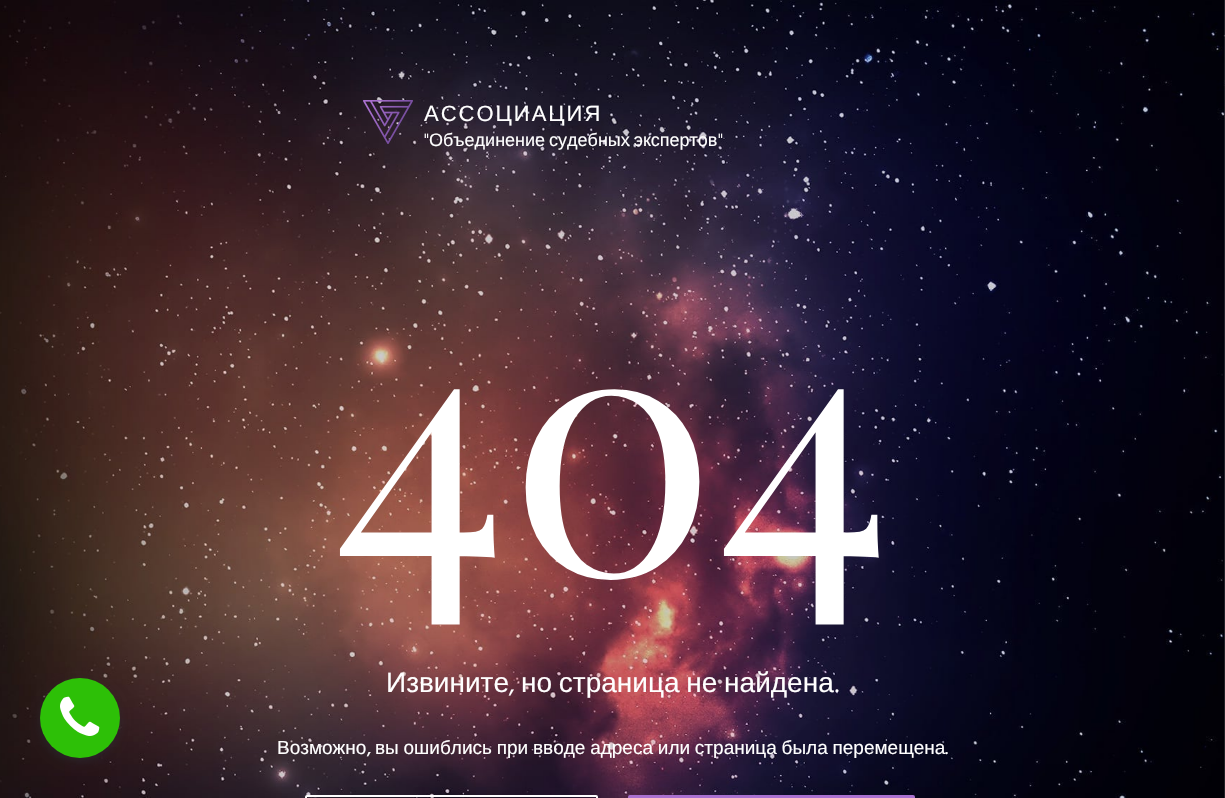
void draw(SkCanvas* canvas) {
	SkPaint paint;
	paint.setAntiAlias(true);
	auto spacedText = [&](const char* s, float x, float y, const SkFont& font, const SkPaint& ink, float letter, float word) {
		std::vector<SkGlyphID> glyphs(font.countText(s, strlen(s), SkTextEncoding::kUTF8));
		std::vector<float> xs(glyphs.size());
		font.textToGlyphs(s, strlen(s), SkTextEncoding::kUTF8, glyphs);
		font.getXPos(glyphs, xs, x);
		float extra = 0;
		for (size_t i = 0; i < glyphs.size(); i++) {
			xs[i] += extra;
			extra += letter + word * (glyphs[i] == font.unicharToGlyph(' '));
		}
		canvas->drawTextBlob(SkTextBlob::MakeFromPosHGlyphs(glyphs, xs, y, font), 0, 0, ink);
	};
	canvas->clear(0xffffffff);
	canvas->drawImageRect(SkImages::DeferredFromEncodedData(SkData::MakeFromFileName("img1.png")), SkRect::MakeXYWH(0, 0, 1225, 798), SkSamplingOptions());
	paint.setColor(0x592e3a46);
	paint.setMaskFilter(SkMaskFilter::MakeBlur(kNormal_SkBlurStyle, 5));
	canvas->drawRoundRect(SkRect::MakeXYWH(40, 682, 80, 80), 40, 40, paint);
	paint.setMaskFilter(nullptr);
	paint.setColor(0xff2dc007);
	canvas->drawCircle(80, 718, 40, paint);
	canvas->drawImageRect(SkImages::DeferredFromEncodedData(SkData::MakeFromFileName("img2.png")), SkRect::MakeXYWH(60, 696, 40, 40), SkSamplingOptions());
	canvas->drawImageRect(SkImages::DeferredFromEncodedData(SkData::MakeFromFileName("img3.png")), SkRect::MakeXYWH(363, 100, 50, 44), SkSamplingOptions());
	SkFont f1(fontMgr->matchFamilyStyle("Liberation Sans", SkFontStyle::Normal()), 22);
	f1.setSubpixel(true);
	paint.setColor(0xffffffff);
	spacedText("АССОЦИАЦИЯ", 424, 121, f1, paint, 2, 0);
	SkFont f2(fontMgr->matchFamilyStyle("Hind", SkFontStyle(300, SkFontStyle::kNormal_Width, SkFontStyle::kUpright_Slant)), 18);
	f2.setSubpixel(true);
	canvas->drawString("\"", 424, 146, f2, paint);
	SkFont f3(fontMgr->matchFamilyStyle("Liberation Sans", SkFontStyle::Normal()), 18);
	f3.setSubpixel(true);
	spacedText("Объединение судебных экспертов", 429, 146, f3, paint, 0, -1);
	canvas->drawString("\"", 718, 146, f2, paint);
	SkFont f4(fontMgr->matchFamilyStyle("Playfair Display", SkFontStyle::Normal()), 351);
	f4.setSubpixel(true);
	canvas->drawString("404", 334, 575, f4, paint);
	SkFont f5(fontMgr->matchFamilyStyle("Liberation Sans", SkFontStyle::Normal()), 28);
	f5.setSubpixel(true);
	canvas->drawString("Извините", 386, 692, f5, paint);
	SkFont f6(fontMgr->matchFamilyStyle("Hind", SkFontStyle(300, SkFontStyle::kNormal_Width, SkFontStyle::kUpright_Slant)), 28);
	f6.setSubpixel(true);
	canvas->drawString(",", 509, 692, f6, paint);
	spacedText("но страница не найдена", 521, 692, f5, paint, 0, -1);
	canvas->drawString(".", 835, 692, f6, paint);
	SkFont f7(fontMgr->matchFamilyStyle("Liberation Sans", SkFontStyle::Normal()), 19);
	f7.setSubpixel(true);
	canvas->drawString("Возможно", 277, 754, f7, paint);
	SkFont f8(fontMgr->matchFamilyStyle("Hind", SkFontStyle::Normal()), 19);
	f8.setSubpixel(true);
	canvas->drawString(",", 367, 754, f8, paint);
	spacedText("вы ошиблись при вводе адреса или страница была перемещена", 375, 754, f7, paint, 0, -0.5);
	canvas->drawString(".", 945, 754, f8, paint);
	paint.setStroke(true);
	paint.setStrokeWidth(2);
	canvas->drawRoundRect(SkRect::MakeXYWH(306, 796, 291, 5), 1, 1, paint);
	paint.setStroke(false);
	paint.setColor(0xffaa71d0);
	canvas->drawRoundRect(SkRect::MakeXYWH(629, 796, 285, 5), 1, 1, paint);
	paint.setStroke(true);
	canvas->drawRoundRect(SkRect::MakeXYWH(629, 796, 285, 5), 1, 1, paint);
}
